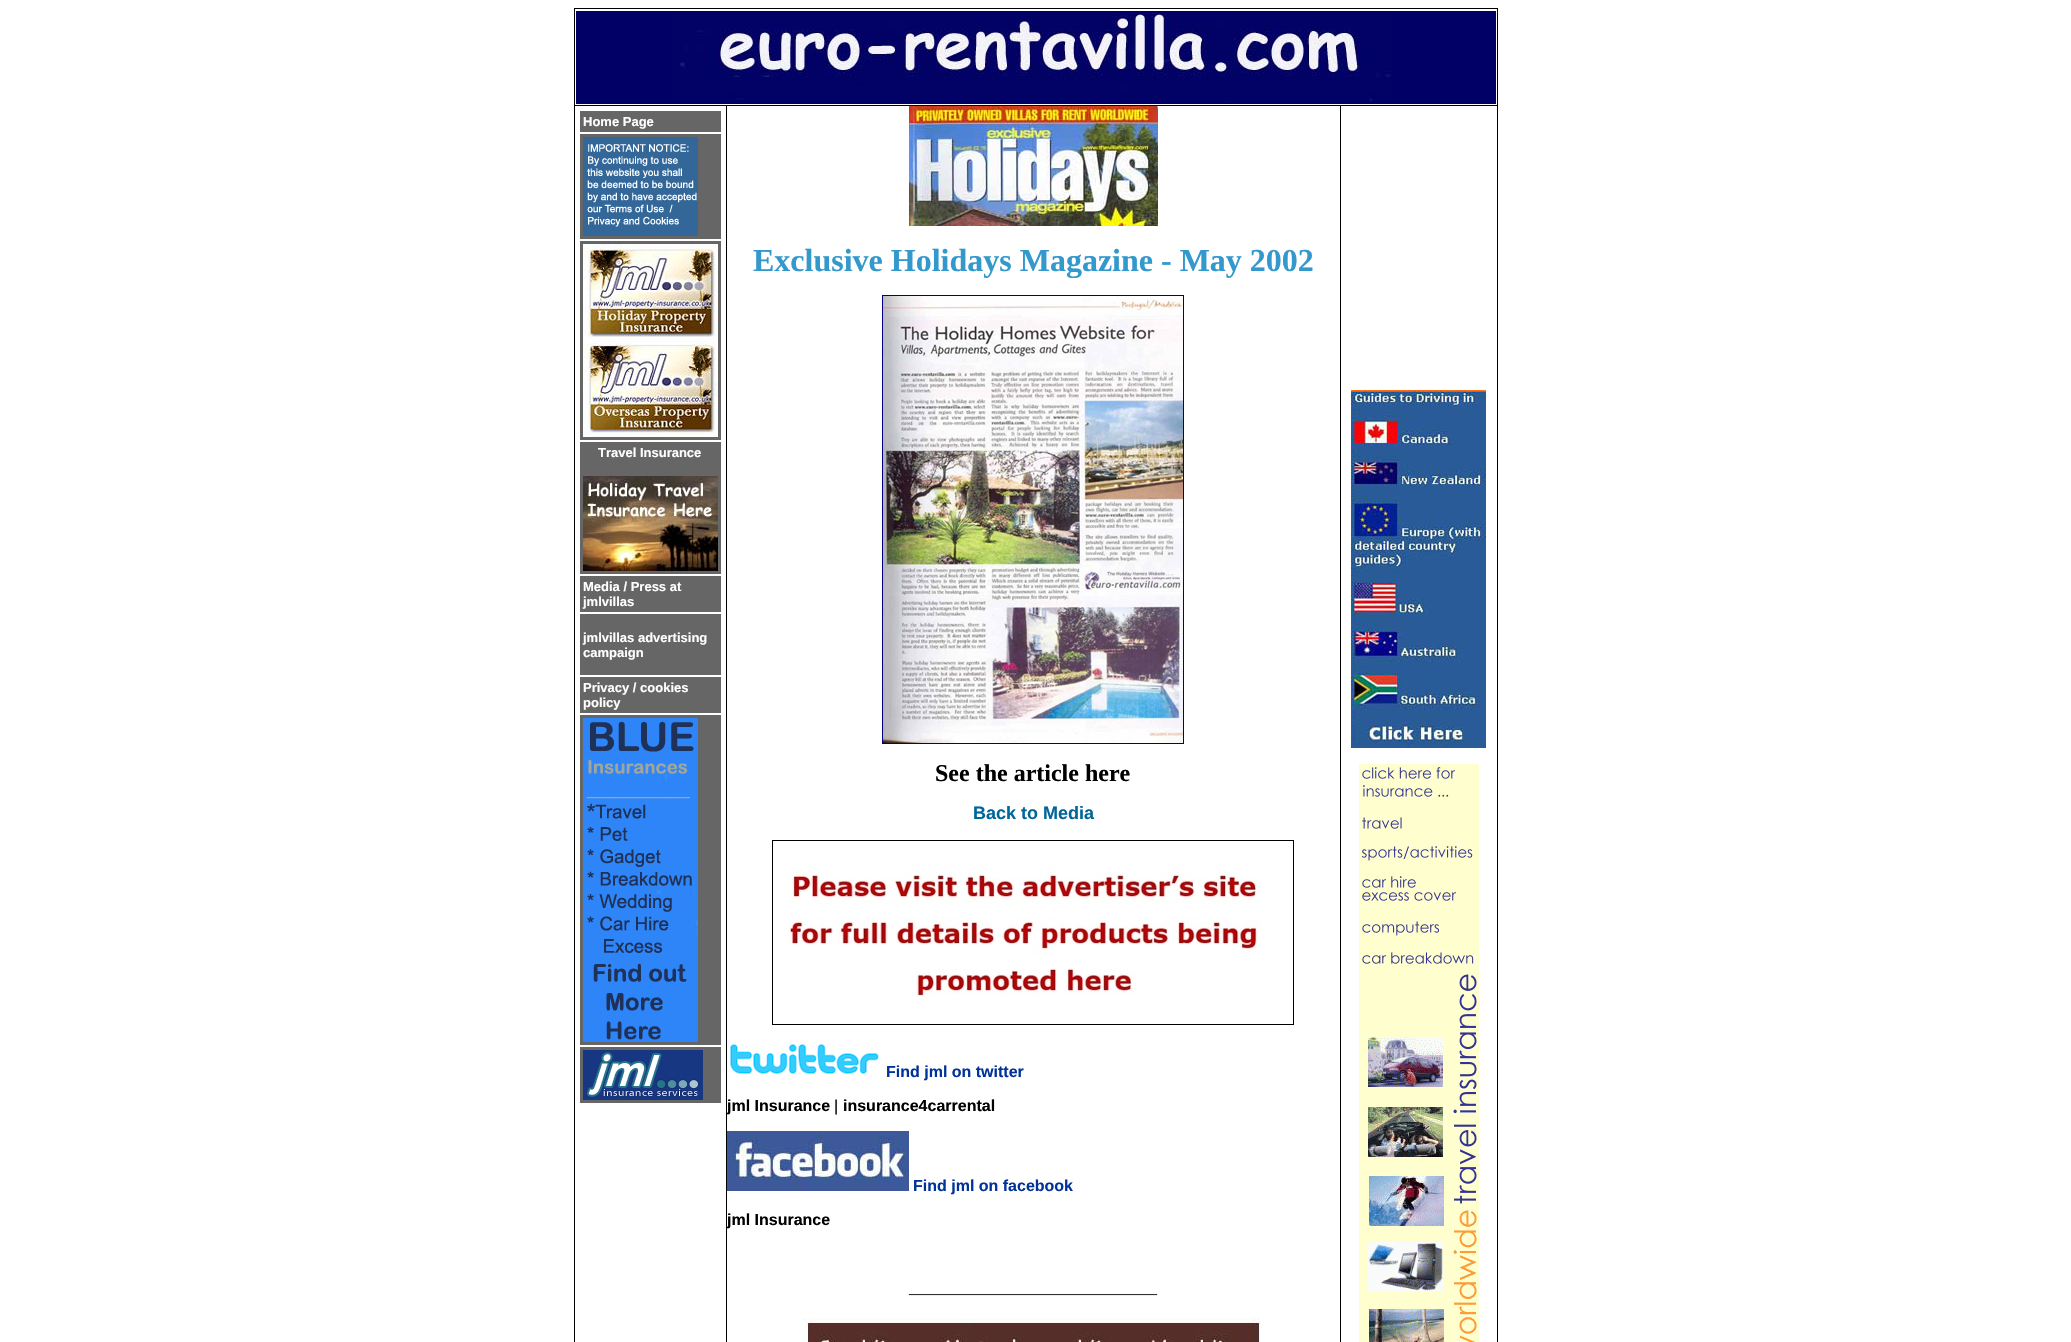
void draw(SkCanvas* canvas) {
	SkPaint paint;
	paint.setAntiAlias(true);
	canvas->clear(0xffffffff);
	paint.setColor(0xff000000);
	canvas->drawRect(SkRect::MakeXYWH(574, 8, 924, 1334), paint);
	paint.setColor(0xffffffff);
	canvas->drawRect(SkRect::MakeXYWH(575, 9, 922, 96), paint);
	paint.setColor(0xff000066);
	canvas->drawRect(SkRect::MakeXYWH(576, 11, 920, 93), paint);
	canvas->drawImageRect(SkImages::DeferredFromEncodedData(SkData::MakeFromFileName("img1.png")), SkRect::MakeXYWH(672, 13, 720, 89), SkSamplingOptions());
	paint.setColor(0xffffffff);
	canvas->drawRect(SkRect::MakeXYWH(575, 106, 151, 1236), paint);
	paint.setColor(0xff666666);
	canvas->drawRect(SkRect::MakeXYWH(580, 111, 141, 21), paint);
	SkFont f1(fontMgr->matchFamilyStyle("Liberation Sans", SkFontStyle::Bold()), 13);
	f1.setSubpixel(true);
	paint.setColor(0xffffffff);
	canvas->drawString("Home Page", 583, 126, f1, paint);
	paint.setColor(0xff666666);
	canvas->drawRect(SkRect::MakeXYWH(580, 134, 141, 105), paint);
	canvas->drawImageRect(SkImages::DeferredFromEncodedData(SkData::MakeFromFileName("img2.png")), SkRect::MakeXYWH(583, 137, 115, 99), SkSamplingOptions());
	canvas->drawRect(SkRect::MakeXYWH(580, 241, 141, 199), paint);
	canvas->drawImageRect(SkImages::DeferredFromEncodedData(SkData::MakeFromFileName("img3.png")), SkRect::MakeXYWH(583, 244, 135, 193), SkSamplingOptions());
	canvas->drawRect(SkRect::MakeXYWH(580, 442, 141, 132), paint);
	paint.setColor(0xffffffff);
	canvas->drawString("Travel Insurance", 598, 457, f1, paint);
	canvas->drawImageRect(SkImages::DeferredFromEncodedData(SkData::MakeFromFileName("img4.png")), SkRect::MakeXYWH(583, 476, 135, 95), SkSamplingOptions());
	paint.setColor(0xff666666);
	canvas->drawRect(SkRect::MakeXYWH(580, 576, 141, 36), paint);
	paint.setColor(0xffffffff);
	canvas->drawString("Media / Press at", 583, 591, f1, paint);
	canvas->drawString("jmlvillas", 583, 606, f1, paint);
	paint.setColor(0xff666666);
	canvas->drawRect(SkRect::MakeXYWH(580, 614, 141, 61), paint);
	paint.setColor(0xffffffff);
	canvas->drawString("jmlvillas advertising", 583, 642, f1, paint);
	canvas->drawString("campaign", 583, 657, f1, paint);
	paint.setColor(0xff666666);
	canvas->drawRect(SkRect::MakeXYWH(580, 677, 141, 36), paint);
	paint.setColor(0xffffffff);
	canvas->drawString("Privacy / cookies", 583, 692, f1, paint);
	canvas->drawString("policy", 583, 707, f1, paint);
	paint.setColor(0xff666666);
	canvas->drawRect(SkRect::MakeXYWH(580, 715, 141, 330), paint);
	canvas->drawImageRect(SkImages::DeferredFromEncodedData(SkData::MakeFromFileName("img5.png")), SkRect::MakeXYWH(583, 718, 115, 324), SkSamplingOptions());
	canvas->drawRect(SkRect::MakeXYWH(580, 1047, 141, 56), paint);
	canvas->drawImageRect(SkImages::DeferredFromEncodedData(SkData::MakeFromFileName("img6.png")), SkRect::MakeXYWH(583, 1050, 120, 50), SkSamplingOptions());
	paint.setColor(0xffffffff);
	canvas->drawRect(SkRect::MakeXYWH(727, 106, 613, 1236), paint);
	canvas->drawImageRect(SkImages::DeferredFromEncodedData(SkData::MakeFromFileName("img7.png")), SkRect::MakeXYWH(909, 106, 249, 120), SkSamplingOptions());
	SkFont f2(fontMgr->matchFamilyStyle("Liberation Serif", SkFontStyle::Bold()), 32);
	f2.setSubpixel(true);
	paint.setColor(0xff3399cc);
	canvas->drawString("Exclusive Holidays Magazine - May 2002", 753, 271, f2, paint);
	paint.setStroke(true);
	paint.setStrokeWidth(1);
	paint.setColor(0xff000080);
	canvas->drawRect(SkRect::MakeXYWH(882.5, 295.5, 301, 448), paint);
	canvas->drawImageRect(SkImages::DeferredFromEncodedData(SkData::MakeFromFileName("img8.png")), SkRect::MakeXYWH(883, 296, 300, 447), SkSamplingOptions());
	SkFont f3(fontMgr->matchFamilyStyle("Liberation Serif", SkFontStyle::Bold()), 24);
	f3.setSubpixel(true);
	paint.setStroke(false);
	paint.setColor(0xff000000);
	canvas->drawString("See the article here", 935, 781, f3, paint);
	SkFont f4(fontMgr->matchFamilyStyle("Liberation Sans", SkFontStyle::Bold()), 18);
	f4.setSubpixel(true);
	paint.setColor(0xff006699);
	canvas->drawString("Back to Media", 973, 819, f4, paint);
	paint.setStroke(true);
	paint.setColor(0xff000000);
	canvas->drawRect(SkRect::MakeXYWH(772.5, 840.5, 521, 184), paint);
	canvas->drawImageRect(SkImages::DeferredFromEncodedData(SkData::MakeFromFileName("img9.png")), SkRect::MakeXYWH(787, 865, 475, 131), SkSamplingOptions());
	canvas->drawImageRect(SkImages::DeferredFromEncodedData(SkData::MakeFromFileName("img10.png")), SkRect::MakeXYWH(730, 1044, 149, 30), SkSamplingOptions());
	SkFont f5(fontMgr->matchFamilyStyle("Liberation Sans", SkFontStyle::Bold()), 16);
	f5.setSubpixel(true);
	paint.setStroke(false);
	paint.setColor(0xff003399);
	canvas->drawString("Find jml on twitter", 886, 1077, f5, paint);
	paint.setColor(0xff000000);
	canvas->drawString("jml Insurance", 727, 1111, f5, paint);
	SkFont f6(fontMgr->matchFamilyStyle("Liberation Sans", SkFontStyle::Normal()), 16);
	f6.setSubpixel(true);
	canvas->drawString("|", 834, 1111, f6, paint);
	canvas->drawString("insurance4carrental", 843, 1111, f5, paint);
	canvas->drawImageRect(SkImages::DeferredFromEncodedData(SkData::MakeFromFileName("img11.png")), SkRect::MakeXYWH(727, 1131, 182, 60), SkSamplingOptions());
	paint.setColor(0xff003399);
	canvas->drawString("Find jml on facebook", 913, 1191, f5, paint);
	paint.setColor(0xff000000);
	canvas->drawString("jml Insurance", 727, 1225, f5, paint);
	SkFont f7(fontMgr->matchFamilyStyle("Liberation Serif", SkFontStyle::Normal()), 16);
	f7.setSubpixel(true);
	canvas->drawString("_______________________________", 909, 1293, f7, paint);
	canvas->drawImageRect(SkImages::DeferredFromEncodedData(SkData::MakeFromFileName("img12.png")), SkRect::MakeXYWH(802, 1318, 459, 24), SkSamplingOptions());
	paint.setColor(0xffffffff);
	canvas->drawRect(SkRect::MakeXYWH(1341, 106, 156, 1236), paint);
	canvas->drawImageRect(SkImages::DeferredFromEncodedData(SkData::MakeFromFileName("img13.png")), SkRect::MakeXYWH(1351, 390, 135, 358), SkSamplingOptions());
	canvas->drawImageRect(SkImages::DeferredFromEncodedData(SkData::MakeFromFileName("img14.png")), SkRect::MakeXYWH(1359, 764, 120, 578), SkSamplingOptions());
}
